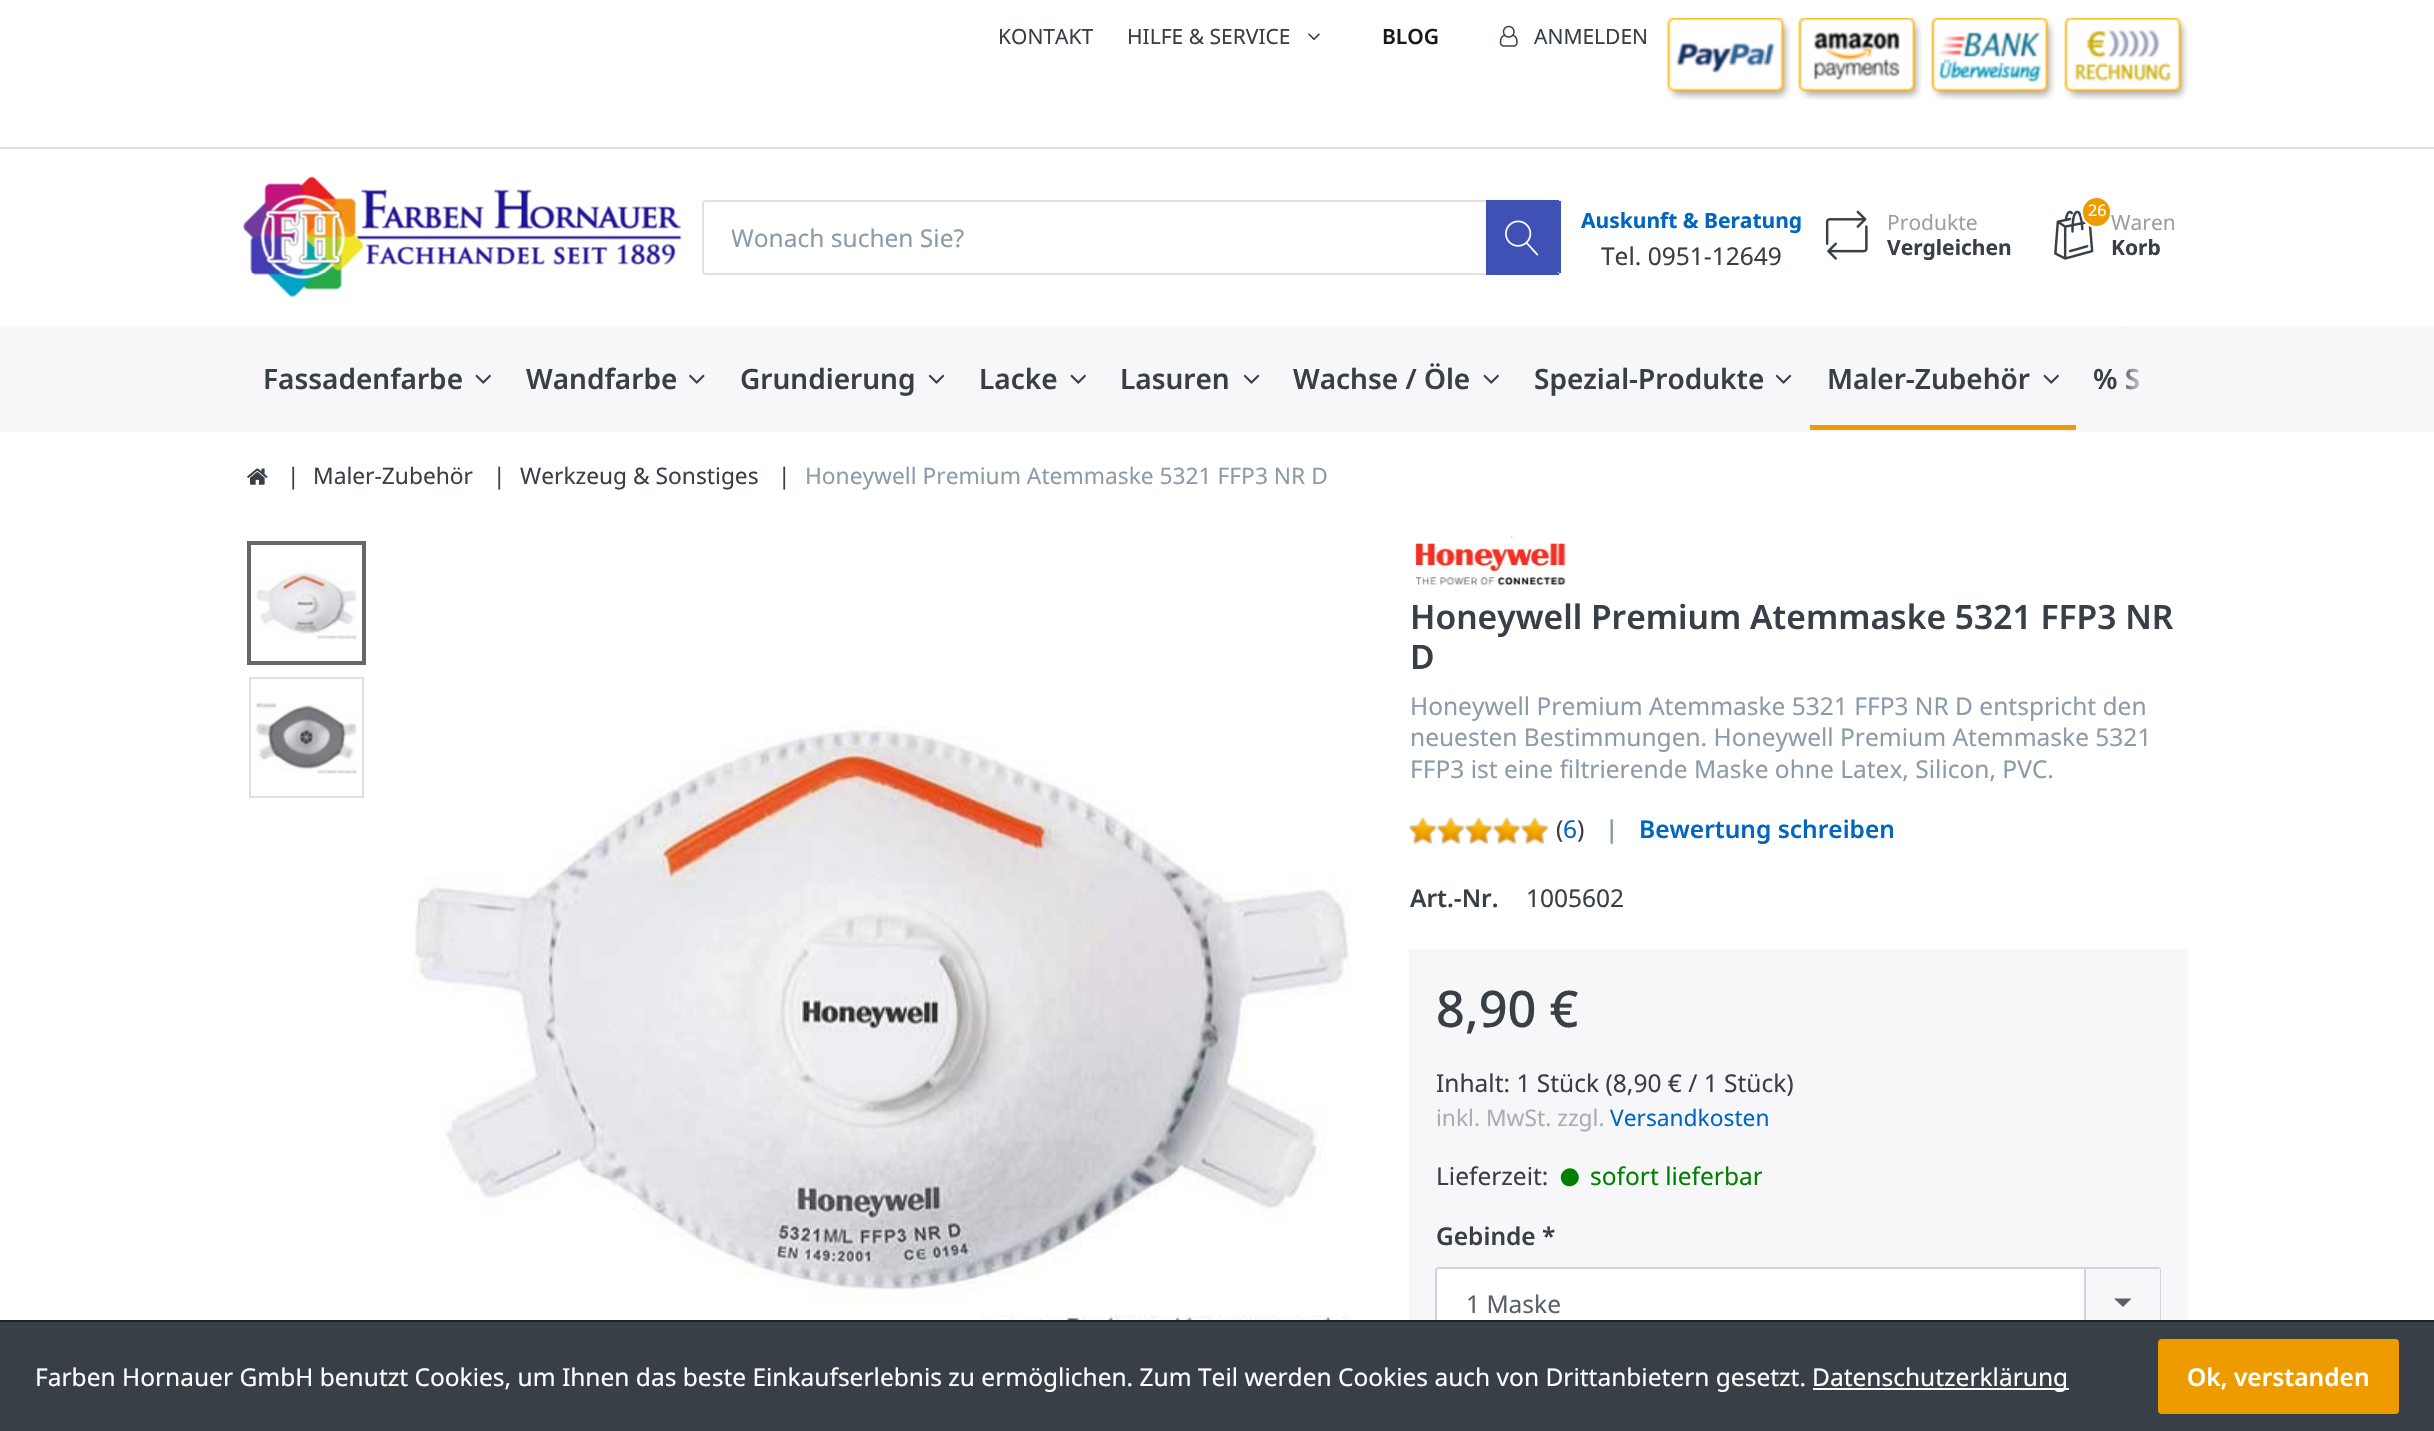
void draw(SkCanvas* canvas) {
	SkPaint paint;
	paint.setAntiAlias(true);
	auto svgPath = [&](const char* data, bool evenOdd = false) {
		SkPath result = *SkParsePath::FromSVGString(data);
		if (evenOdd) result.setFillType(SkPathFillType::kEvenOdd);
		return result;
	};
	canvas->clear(0xffffffff);
	paint.setColor(0xffdddddd);
	canvas->drawRect(SkRect::MakeXYWH(0, 147, 2434, 2), paint);
	SkFont f1(fontMgr->matchFamilyStyle("Noto Sans", SkFontStyle::Normal()), 21);
	f1.setSubpixel(true);
	paint.setColor(0xff393f46);
	canvas->drawString("KONTAKT", 998, 44, f1, paint);
	canvas->drawString("HILFE & SERVICE", 1127, 44, f1, paint);
	canvas->drawImageRect(SkImages::DeferredFromEncodedData(SkData::MakeFromFileName("img1.png")), SkRect::MakeXYWH(1308, 33, 12, 8), SkSamplingOptions());
	SkFont f2(fontMgr->matchFamilyStyle("Noto Sans", SkFontStyle(600, SkFontStyle::kNormal_Width, SkFontStyle::kUpright_Slant)), 21);
	f2.setSubpixel(true);
	paint.setColor(0xff17191c);
	canvas->drawString("BLOG", 1382, 44, f2, paint);
	canvas->drawImageRect(SkImages::DeferredFromEncodedData(SkData::MakeFromFileName("img2.png")), SkRect::MakeXYWH(1499, 25, 19, 22), SkSamplingOptions());
	paint.setColor(0xff393f46);
	canvas->drawString("ANMELDEN", 1534, 44, f1, paint);
	canvas->drawImageRect(SkImages::DeferredFromEncodedData(SkData::MakeFromFileName("img3.png")), SkRect::MakeXYWH(1666, 18, 125, 82), SkSamplingOptions());
	canvas->drawImageRect(SkImages::DeferredFromEncodedData(SkData::MakeFromFileName("img4.png")), SkRect::MakeXYWH(1798, 18, 124, 82), SkSamplingOptions());
	canvas->drawImageRect(SkImages::DeferredFromEncodedData(SkData::MakeFromFileName("img5.png")), SkRect::MakeXYWH(1931, 18, 124, 82), SkSamplingOptions());
	canvas->drawImageRect(SkImages::DeferredFromEncodedData(SkData::MakeFromFileName("img6.png")), SkRect::MakeXYWH(2064, 18, 124, 82), SkSamplingOptions());
	canvas->drawImageRect(SkImages::DeferredFromEncodedData(SkData::MakeFromFileName("img7.png")), SkRect::MakeXYWH(242, 176, 440, 122), SkSamplingOptions());
	paint.setStroke(true);
	paint.setStrokeWidth(2);
	paint.setColor(0xffe0e0e0);
	canvas->drawRoundRect(SkRect::MakeXYWH(703, 201, 857, 73), 3, 3, paint);
	canvas->save();
	canvas->clipRect(SkRect::MakeXYWH(732, 221, 722, 33));
	SkFont f3(fontMgr->matchFamilyStyle("Noto Sans", SkFontStyle::Normal()), 24.5);
	f3.setSubpixel(true);
	paint.setStroke(false);
	paint.setColor(0xff8d9ba9);
	canvas->drawString("Wonach suchen Sie?", 731, 247, f3, paint);
	canvas->restore();
	paint.setColor(0xff3f51b5);
	canvas->drawPath(svgPath("M1486 201H1557C1558 201 1559 202 1559 203V271C1559 272 1558 273 1557 273H1486Z"), paint);
	canvas->drawRect(SkRect::MakeXYWH(1486, 200, 73, 2), paint);
	canvas->drawRect(SkRect::MakeXYWH(1559, 201, 2, 72), paint);
	canvas->drawRect(SkRect::MakeXYWH(1486, 273, 73, 2), paint);
	canvas->drawImageRect(SkImages::DeferredFromEncodedData(SkData::MakeFromFileName("img8.png")), SkRect::MakeXYWH(1505, 220, 34, 36), SkSamplingOptions());
	SkFont f4(fontMgr->matchFamilyStyle("Noto Sans", SkFontStyle::Bold()), 21);
	f4.setSubpixel(true);
	paint.setColor(0xff0066c0);
	canvas->drawString("Auskunft & Beratung", 1581, 228, f4, paint);
	paint.setColor(0xff393f46);
	canvas->drawString("Tel. 0951-12649", 1601, 265, f3, paint);
	canvas->drawImageRect(SkImages::DeferredFromEncodedData(SkData::MakeFromFileName("img9.png")), SkRect::MakeXYWH(1825, 210, 43, 50), SkSamplingOptions());
	paint.setColor(0xff9c9fa3);
	canvas->drawString("Produkte", 1887, 230, f1, paint);
	paint.setColor(0xff393f46);
	canvas->drawString("Vergleichen", 1887, 255, f4, paint);
	canvas->drawImageRect(SkImages::DeferredFromEncodedData(SkData::MakeFromFileName("img10.png")), SkRect::MakeXYWH(2054, 210, 40, 50), SkSamplingOptions());
	paint.setColor(0xffee9b00);
	canvas->drawRoundRect(SkRect::MakeXYWH(2082, 197, 29, 30), 14.5, 14.5, paint);
	paint.setStroke(true);
	paint.setColor(0xffffffff);
	canvas->drawRoundRect(SkRect::MakeXYWH(2082, 197, 29, 30), 14.5, 14.5, paint);
	SkFont f5(fontMgr->matchFamilyStyle("Noto Sans", SkFontStyle::Normal()), 16);
	f5.setSubpixel(true);
	paint.setStroke(false);
	canvas->drawString("26", 2088, 216, f5, paint);
	paint.setColor(0xff9c9fa3);
	canvas->drawString("Waren", 2111, 230, f1, paint);
	paint.setColor(0xff393f46);
	canvas->drawString("Korb", 2111, 255, f4, paint);
	paint.setColor(0xfff7f7f9);
	canvas->drawRect(SkRect::MakeXYWH(0, 326, 2434, 106), paint);
	SkFont f6(fontMgr->matchFamilyStyle("Noto Sans", SkFontStyle(600, SkFontStyle::kNormal_Width, SkFontStyle::kUpright_Slant)), 28);
	f6.setSubpixel(true);
	paint.setColor(0xff393f46);
	canvas->drawString("Fassadenfarbe", 263, 389, f6, paint);
	canvas->drawImageRect(SkImages::DeferredFromEncodedData(SkData::MakeFromFileName("img11.png")), SkRect::MakeXYWH(475, 374, 16, 10), SkSamplingOptions());
	canvas->drawString("Wandfarbe", 526, 389, f6, paint);
	canvas->drawImageRect(SkImages::DeferredFromEncodedData(SkData::MakeFromFileName("img12.png")), SkRect::MakeXYWH(689, 374, 16, 10), SkSamplingOptions());
	canvas->drawString("Grundierung", 740, 389, f6, paint);
	canvas->drawImageRect(SkImages::DeferredFromEncodedData(SkData::MakeFromFileName("img13.png")), SkRect::MakeXYWH(928, 374, 17, 10), SkSamplingOptions());
	canvas->drawString("Lacke", 979, 389, f6, paint);
	canvas->drawImageRect(SkImages::DeferredFromEncodedData(SkData::MakeFromFileName("img11.png")), SkRect::MakeXYWH(1070, 374, 16, 10), SkSamplingOptions());
	canvas->drawString("Lasuren", 1120, 389, f6, paint);
	canvas->drawImageRect(SkImages::DeferredFromEncodedData(SkData::MakeFromFileName("img13.png")), SkRect::MakeXYWH(1243, 374, 17, 10), SkSamplingOptions());
	canvas->drawString("Wachse / Öle", 1293, 389, f6, paint);
	canvas->drawImageRect(SkImages::DeferredFromEncodedData(SkData::MakeFromFileName("img11.png")), SkRect::MakeXYWH(1483, 374, 16, 10), SkSamplingOptions());
	canvas->drawString("Spezial-Produkte", 1534, 389, f6, paint);
	canvas->drawImageRect(SkImages::DeferredFromEncodedData(SkData::MakeFromFileName("img13.png")), SkRect::MakeXYWH(1775, 374, 17, 10), SkSamplingOptions());
	canvas->drawString("Maler-Zubehör", 1827, 389, f6, paint);
	canvas->drawImageRect(SkImages::DeferredFromEncodedData(SkData::MakeFromFileName("img11.png")), SkRect::MakeXYWH(2043, 374, 16, 10), SkSamplingOptions());
	paint.setColor(0xffee9b00);
	canvas->drawRect(SkRect::MakeXYWH(1810, 425, 266, 5), paint);
	paint.setColor(0xff393f46);
	canvas->drawString("% S", 2093, 389, f6, paint);
	{
		const SkColor colors[] = {0x00f7f7f9, 0xfff7f7f9, 0xfff7f7f9};
		const float stops[] = {0, 0.4, 1};
		const SkPoint ends[] = {{2119, 378}, {2189, 378}};
		paint.setShader(SkGradientShader::MakeLinear(ends, colors, stops, 3, SkTileMode::kClamp));
		paint.setAlpha(255);
	}
	canvas->drawRoundRect(SkRect::MakeXYWH(2119, 326, 70, 105), 4, 4, paint);
	canvas->drawImageRect(SkImages::DeferredFromEncodedData(SkData::MakeFromFileName("img14.png")), SkRect::MakeXYWH(247, 468, 21, 17), SkSamplingOptions());
	SkFont f7(fontMgr->matchFamilyStyle("Noto Sans", SkFontStyle::Normal()), 22.75);
	f7.setSubpixel(true);
	paint.setShader(nullptr);
	paint.setColor(0xff393f46);
	canvas->drawString("|", 287, 484, f7, paint);
	canvas->drawString("Maler-Zubehör", 313, 484, f7, paint);
	canvas->drawString("|", 493, 484, f7, paint);
	canvas->drawString("Werkzeug & Sonstiges", 520, 484, f7, paint);
	canvas->drawString("|", 778, 484, f7, paint);
	paint.setColor(0xff8d9ba9);
	canvas->drawString("Honeywell Premium Atemmaske 5321 FFP3 NR D", 805, 484, f7, paint);
	paint.setStroke(true);
	paint.setColor(0xff666666);
	canvas->drawRect(SkRect::MakeXYWH(250, 544, 113, 118), paint);
	canvas->drawRect(SkRect::MakeXYWH(248, 542, 117, 122), paint);
	canvas->drawImageRect(SkImages::DeferredFromEncodedData(SkData::MakeFromFileName("img15.png")), SkRect::MakeXYWH(256, 568, 101, 72), SkSamplingOptions());
	paint.setColor(0xffe0e0e0);
	canvas->drawRect(SkRect::MakeXYWH(250, 678, 113, 119), paint);
	canvas->drawImageRect(SkImages::DeferredFromEncodedData(SkData::MakeFromFileName("img16.png")), SkRect::MakeXYWH(255, 702, 102, 72), SkSamplingOptions());
	canvas->drawImageRect(SkImages::DeferredFromEncodedData(SkData::MakeFromFileName("img17.png")), SkRect::MakeXYWH(414, 726, 938, 594), SkSamplingOptions());
	canvas->drawImageRect(SkImages::DeferredFromEncodedData(SkData::MakeFromFileName("img18.png")), SkRect::MakeXYWH(1415, 536, 151, 50), SkSamplingOptions());
	SkFont f8(fontMgr->matchFamilyStyle("Noto Sans", SkFontStyle(600, SkFontStyle::kNormal_Width, SkFontStyle::kUpright_Slant)), 33.6);
	f8.setSubpixel(true);
	paint.setStroke(false);
	paint.setColor(0xff393f46);
	canvas->drawString("Honeywell Premium Atemmaske 5321 FFP3 NR", 1410, 629, f8, paint);
	canvas->drawString("D", 1410, 669, f8, paint);
	paint.setColor(0xff8d9ba9);
	canvas->drawString("Honeywell Premium Atemmaske 5321 FFP3 NR D entspricht den", 1410, 715, f3, paint);
	canvas->drawString("neuesten Bestimmungen. Honeywell Premium Atemmaske 5321", 1410, 746, f3, paint);
	canvas->drawString("FFP3 ist eine filtrierende Maske ohne Latex, Silicon, PVC.", 1410, 778, f3, paint);
	canvas->drawImageRect(SkImages::DeferredFromEncodedData(SkData::MakeFromFileName("img19.png")), SkRect::MakeXYWH(1409, 817, 140, 27), SkSamplingOptions());
	canvas->drawImageRect(SkImages::DeferredFromEncodedData(SkData::MakeFromFileName("img20.png")), SkRect::MakeXYWH(1409, 817, 140, 28), SkSamplingOptions());
	paint.setColor(0xff393f46);
	canvas->drawString("(", 1556, 838, f3, paint);
	paint.setColor(0xff0066c0);
	canvas->drawString("6", 1563, 838, f3, paint);
	paint.setColor(0xff393f46);
	canvas->drawString(")", 1577, 838, f3, paint);
	SkFont f9(fontMgr->matchFamilyStyle("Noto Sans", SkFontStyle(600, SkFontStyle::kNormal_Width, SkFontStyle::kUpright_Slant)), 24.5);
	f9.setSubpixel(true);
	paint.setColor(0xff8d9ba9);
	canvas->drawString("|", 1605, 838, f9, paint);
	paint.setColor(0xff0066c0);
	canvas->drawString("Bewertung schreiben", 1639, 838, f9, paint);
	paint.setColor(0xff393f46);
	canvas->drawString("Art.-Nr.", 1410, 907, f9, paint);
	canvas->drawString("1005602", 1526, 907, f3, paint);
	paint.setColor(0xfff7f7f9);
	canvas->drawRect(SkRect::MakeXYWH(1409, 949, 779, 371), paint);
	SkFont f10(fontMgr->matchFamilyStyle("Noto Sans", SkFontStyle(500, SkFontStyle::kNormal_Width, SkFontStyle::kUpright_Slant)), 50.5);
	f10.setSubpixel(true);
	paint.setColor(0xff393f46);
	canvas->drawString("8,90 €", 1436, 1027, f10, paint);
	canvas->drawString("Inhalt: 1 Stück (8,90 € / 1 Stück)", 1436, 1092, f3, paint);
	paint.setColor(0xffabadb1);
	canvas->drawString("inkl. MwSt. zzgl.", 1436, 1126, f7, paint);
	paint.setColor(0xff0066c0);
	canvas->drawString("Versandkosten", 1610, 1126, f7, paint);
	paint.setColor(0xff393f46);
	canvas->drawString("Lieferzeit:", 1436, 1185, f3, paint);
	paint.setColor(0xff008000);
	canvas->drawPath(svgPath("M1577.5 1173C1583.5 1183 1568 1192 1562 1182C1556.5 1171.5 1571.5 1162.5 1577.5 1173Z"), paint);
	canvas->save();
	canvas->clipRect(SkRect::MakeXYWH(1549, 1160, 213, 32));
	canvas->drawString("sofort lieferbar", 1590, 1185, f3, paint);
	canvas->restore();
	paint.setColor(0xff393f46);
	canvas->drawString("Gebinde *", 1436, 1245, f9, paint);
	paint.setColor(0xffffffff);
	canvas->drawRoundRect(SkRect::MakeXYWH(1436, 1268, 724, 73), 3, 3, paint);
	paint.setStroke(true);
	paint.setColor(0xffced4da);
	canvas->drawRoundRect(SkRect::MakeXYWH(1436, 1268, 724, 73), 3, 3, paint);
	paint.setStroke(false);
	paint.setColor(0xff596167);
	canvas->drawString("1 Maske", 1466, 1313, f3, paint);
	paint.setColor(0xfff7f7f9);
	canvas->drawRect(SkRect::MakeXYWH(2086, 1269, 74, 51), paint);
	paint.setColor(0xffced4da);
	canvas->drawRect(SkRect::MakeXYWH(2084, 1269, 2, 51), paint);
	paint.setColor(0xff596167);
	canvas->drawPath(svgPath("M2114 1298.5H2131.5L2123 1307Z"), paint);
	paint.setColor(0xff393f46);
	canvas->drawRect(SkRect::MakeXYWH(0, 1322, 2434, 109), paint);
	paint.setColor(0xff222222);
	canvas->drawRect(SkRect::MakeXYWH(0, 1320, 2434, 2), paint);
	paint.setColor(0xffffffff);
	canvas->drawString("Farben Hornauer GmbH benutzt Cookies, um Ihnen das beste Einkaufserlebnis zu ermöglichen. Zum Teil werden Cookies auch von Drittanbietern gesetzt.", 35, 1386, f3, paint);
	canvas->drawRect(SkRect::MakeXYWH(1813, 1388, 256, 2), paint);
	canvas->drawString("Datenschutzerklärung", 1812, 1386, f3, paint);
	paint.setColor(0xffee9b00);
	canvas->drawRoundRect(SkRect::MakeXYWH(2159, 1340, 239, 73), 3, 3, paint);
	paint.setStroke(true);
	canvas->drawRoundRect(SkRect::MakeXYWH(2159, 1340, 239, 73), 3, 3, paint);
	paint.setStroke(false);
	paint.setColor(0xffffffff);
	canvas->drawString("Ok, verstanden", 2187, 1386, f9, paint);
}
